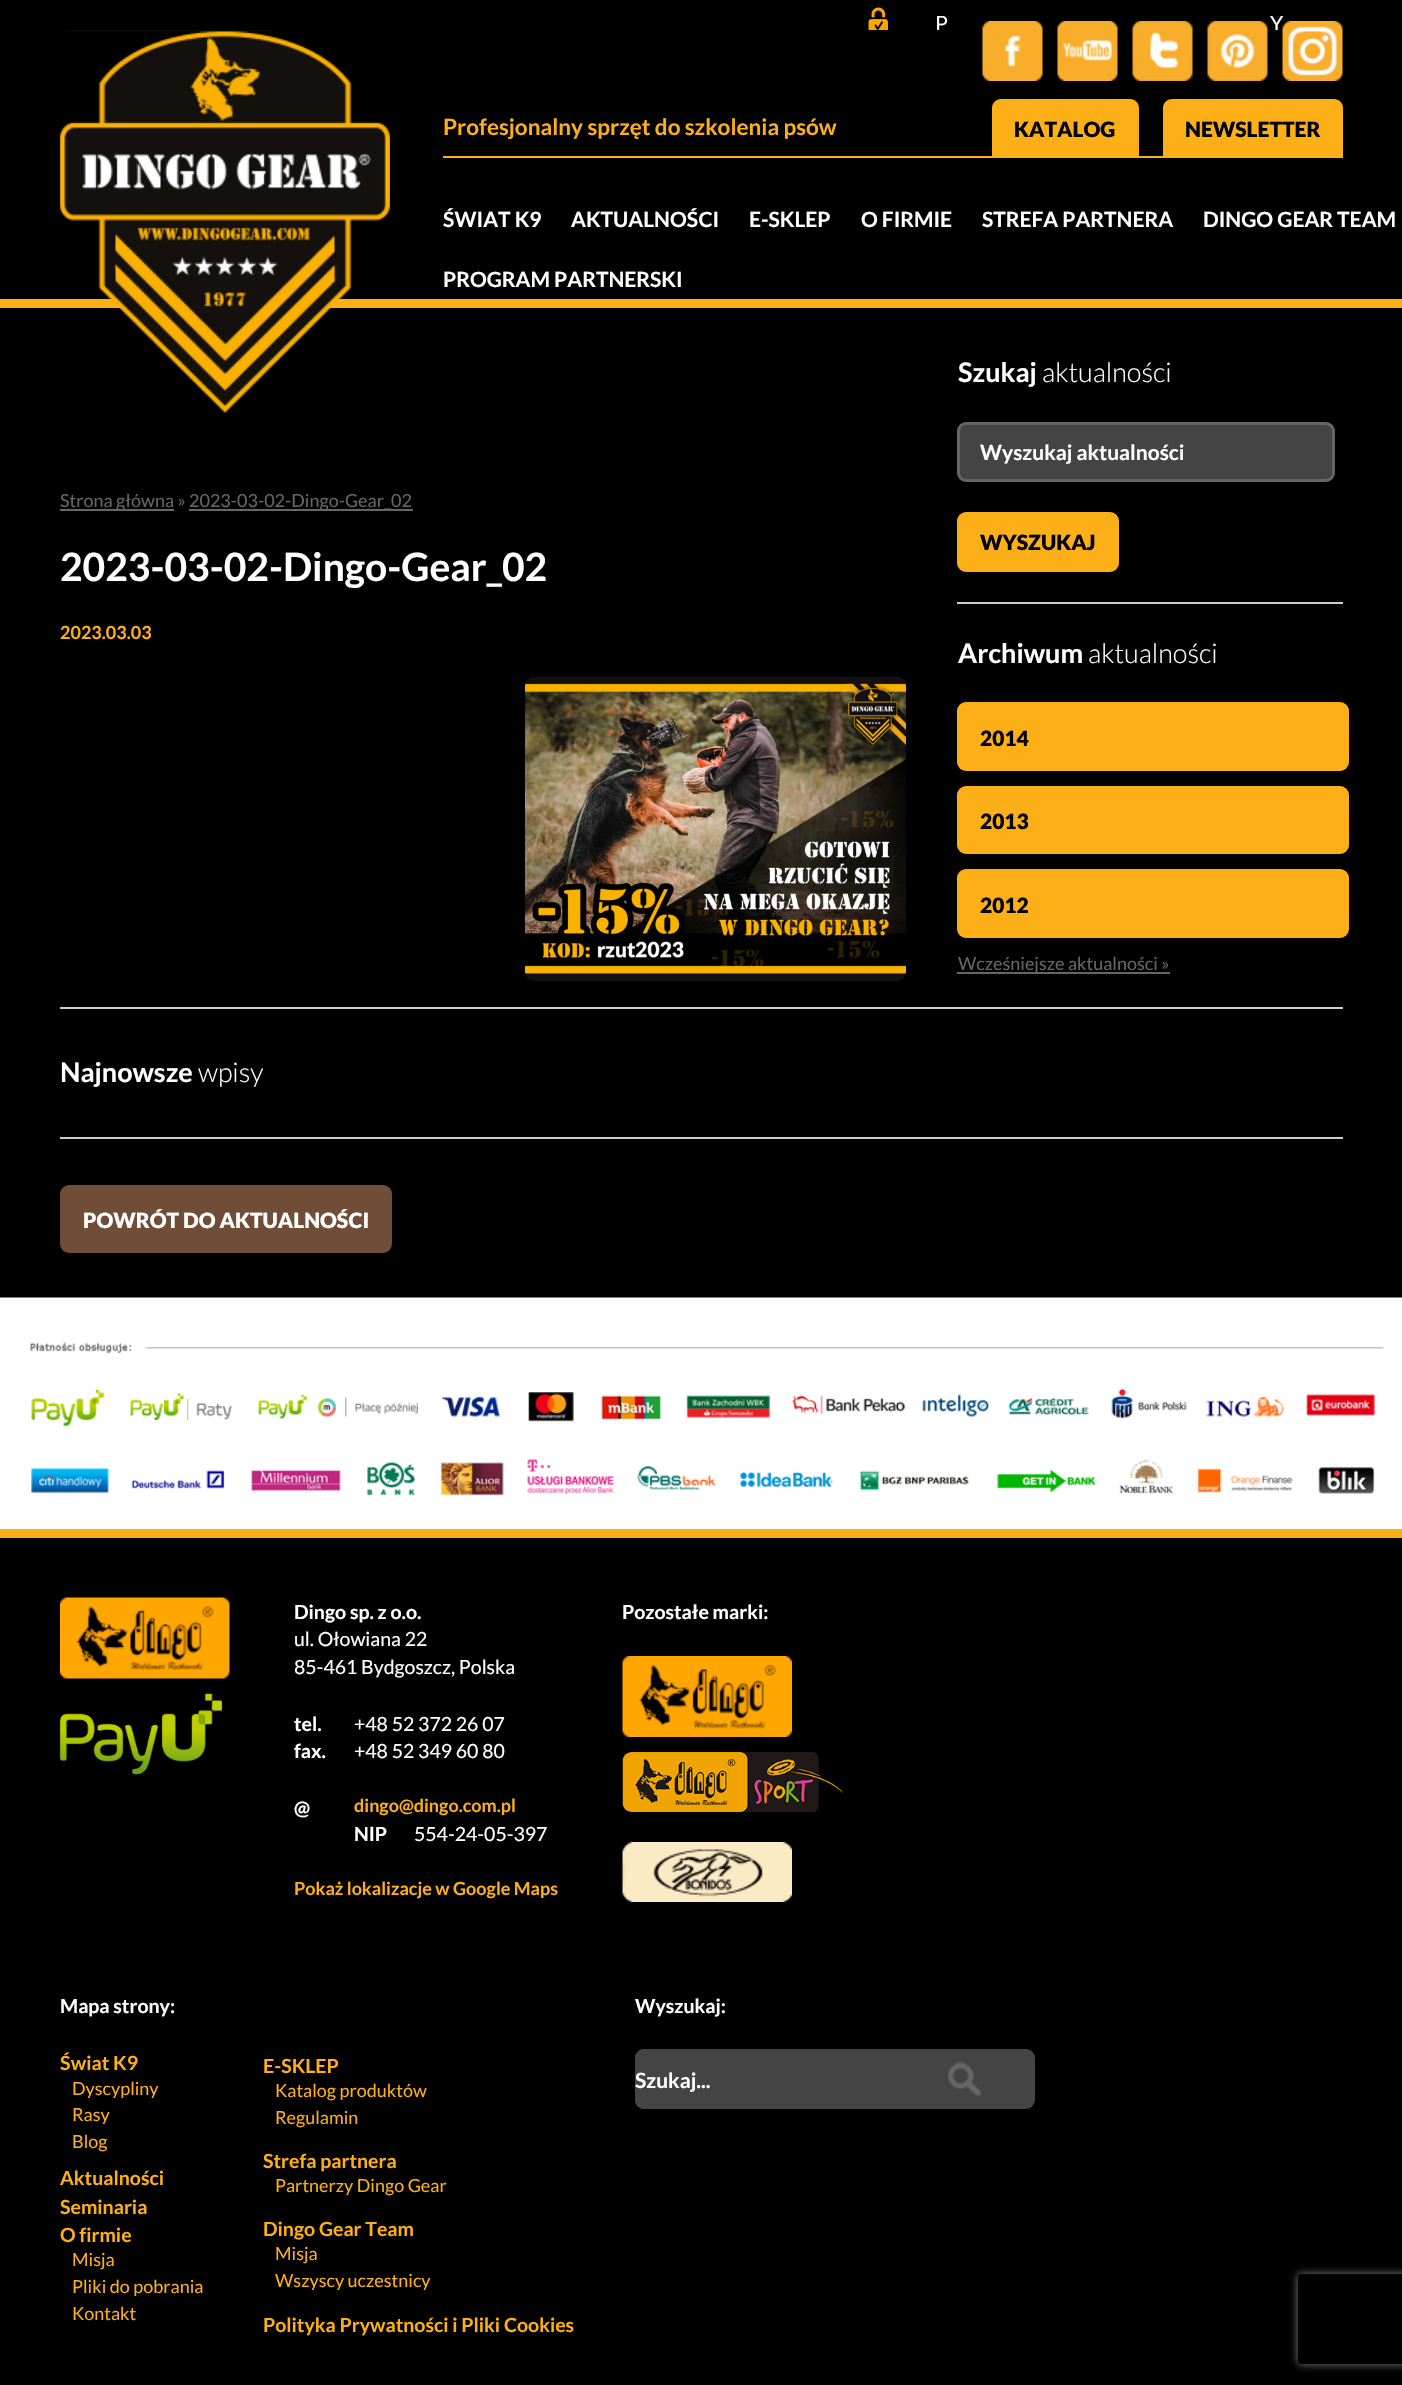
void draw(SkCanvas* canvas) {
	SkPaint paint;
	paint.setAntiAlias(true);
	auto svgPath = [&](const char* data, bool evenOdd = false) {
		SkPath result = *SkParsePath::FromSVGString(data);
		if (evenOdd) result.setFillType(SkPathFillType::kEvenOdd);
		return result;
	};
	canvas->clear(0xff000000);
	canvas->drawImageRect(SkImages::DeferredFromEncodedData(SkData::MakeFromFileName("img1.png")), SkRect::MakeXYWH(868, 7, 20, 23), SkSamplingOptions());
	SkFont f1(fontMgr->matchFamilyStyle("Lato", SkFontStyle::Normal()), 21);
	f1.setSubpixel(true);
	paint.setColor(0xffffffff);
	canvas->drawString("P", 935, 31, f1, paint);
	canvas->drawString("Y", 1270, 31, f1, paint);
	paint.setColor(0xff000000);
	canvas->drawRect(SkRect::MakeXYWH(937, 30, 341, 1), paint);
	paint.setColor(0xfffcaf17);
	canvas->drawRect(SkRect::MakeXYWH(0, 299, 1402, 9), paint);
	canvas->drawImageRect(SkImages::DeferredFromEncodedData(SkData::MakeFromFileName("img2.png")), SkRect::MakeXYWH(60, 30, 330, 383), SkSamplingOptions());
	canvas->drawRect(SkRect::MakeXYWH(443, 156, 900, 2), paint);
	canvas->drawImageRect(SkImages::DeferredFromEncodedData(SkData::MakeFromFileName("img3.png")), SkRect::MakeXYWH(982, 21, 61, 60), SkSamplingOptions());
	canvas->drawImageRect(SkImages::DeferredFromEncodedData(SkData::MakeFromFileName("img4.png")), SkRect::MakeXYWH(1057, 21, 61, 60), SkSamplingOptions());
	canvas->drawImageRect(SkImages::DeferredFromEncodedData(SkData::MakeFromFileName("img5.png")), SkRect::MakeXYWH(1132, 21, 61, 60), SkSamplingOptions());
	canvas->drawImageRect(SkImages::DeferredFromEncodedData(SkData::MakeFromFileName("img6.png")), SkRect::MakeXYWH(1207, 21, 61, 60), SkSamplingOptions());
	canvas->drawImageRect(SkImages::DeferredFromEncodedData(SkData::MakeFromFileName("img7.png")), SkRect::MakeXYWH(1282, 21, 61, 60), SkSamplingOptions());
	SkFont f2(fontMgr->matchFamilyStyle("Lato", SkFontStyle::Bold()), 22.5);
	f2.setSubpixel(true);
	canvas->drawString("Profesjonalny sprzęt do szkolenia psów", 443, 135, f2, paint);
	canvas->drawPath(svgPath("M1001 99H1130C1135 99 1139 103 1139 108V156H992V108C992 103 996 99 1001 99Z"), paint);
	SkFont f3(fontMgr->matchFamilyStyle("Lato", SkFontStyle(900, SkFontStyle::kNormal_Width, SkFontStyle::kUpright_Slant)), 21);
	f3.setSubpixel(true);
	paint.setColor(0xff000000);
	canvas->drawString("KATALOG", 1014, 137, f3, paint);
	paint.setColor(0xfffcaf17);
	canvas->drawPath(svgPath("M1172 99H1334C1339 99 1343 103 1343 108V156H1163V108C1163 103 1167 99 1172 99Z"), paint);
	paint.setColor(0xff000000);
	canvas->drawString("NEWSLETTER", 1185, 137, f3, paint);
	SkFont f4(fontMgr->matchFamilyStyle("Lato", SkFontStyle::Bold()), 21);
	f4.setSubpixel(true);
	paint.setColor(0xffffffff);
	canvas->drawString("ŚWIAT K9", 443, 227, f4, paint);
	canvas->drawString("AKTUALNOŚCI", 571, 227, f4, paint);
	canvas->drawString("E-SKLEP", 749, 227, f4, paint);
	canvas->drawString("O FIRMIE", 861, 227, f4, paint);
	canvas->drawString("STREFA PARTNERA", 982, 227, f4, paint);
	canvas->drawString("DINGO GEAR TEAM", 1203, 227, f4, paint);
	canvas->drawString("PROGRAM PARTNERSKI", 443, 287, f4, paint);
	paint.setColor(0xff666666);
	canvas->drawRect(SkRect::MakeXYWH(60, 509, 114, 2), paint);
	SkFont f5(fontMgr->matchFamilyStyle("Lato", SkFontStyle::Normal()), 18);
	f5.setSubpixel(true);
	canvas->drawString("Strona główna »", 60, 507, f5, paint);
	canvas->drawRect(SkRect::MakeXYWH(189, 509, 224, 2), paint);
	canvas->drawString("2023-03-02-Dingo-Gear_02", 189, 507, f5, paint);
	SkFont f6(fontMgr->matchFamilyStyle("Lato", SkFontStyle::Bold()), 39);
	f6.setSubpixel(true);
	paint.setColor(0xffffffff);
	canvas->drawString("2023-03-02-Dingo-Gear_02", 60, 581, f6, paint);
	SkFont f7(fontMgr->matchFamilyStyle("Lato", SkFontStyle::Bold()), 18);
	f7.setSubpixel(true);
	paint.setColor(0xfffcaf17);
	canvas->drawString("2023.03.03", 60, 639, f7, paint);
	canvas->drawImageRect(SkImages::DeferredFromEncodedData(SkData::MakeFromFileName("img8.png")), SkRect::MakeXYWH(525, 676, 381, 305), SkSamplingOptions());
	SkFont f8(fontMgr->matchFamilyStyle("Lato", SkFontStyle::Bold()), 27);
	f8.setSubpixel(true);
	paint.setColor(0xffffffff);
	canvas->drawString("Szukaj", 958, 382, f8, paint);
	SkFont f9(fontMgr->matchFamilyStyle("Lato", SkFontStyle(300, SkFontStyle::kNormal_Width, SkFontStyle::kUpright_Slant)), 27);
	f9.setSubpixel(true);
	canvas->drawString("aktualności", 1042, 382, f9, paint);
	paint.setColor(0xff444444);
	canvas->drawRoundRect(SkRect::MakeXYWH(958.5, 423.5, 375, 57), 7.5, 7.5, paint);
	paint.setStroke(true);
	paint.setStrokeWidth(3);
	paint.setColor(0xff666666);
	canvas->drawRoundRect(SkRect::MakeXYWH(958.5, 423.5, 375, 57), 7.5, 7.5, paint);
	paint.setStroke(false);
	paint.setColor(0xffffffff);
	canvas->drawString("Wyszukaj aktualności", 980, 460, f4, paint);
	paint.setColor(0xfffcaf17);
	canvas->drawRoundRect(SkRect::MakeXYWH(957, 512, 162, 60), 9, 9, paint);
	paint.setColor(0xff000000);
	canvas->drawString("WYSZUKAJ", 980, 550, f3, paint);
	paint.setColor(0xffcccccc);
	canvas->drawRect(SkRect::MakeXYWH(957, 602, 386, 2), paint);
	paint.setColor(0xffffffff);
	canvas->drawString("Archiwum", 958, 663, f8, paint);
	canvas->drawString("aktualności", 1088, 663, f9, paint);
	paint.setColor(0xfffcaf17);
	canvas->drawRoundRect(SkRect::MakeXYWH(957, 702, 392, 69), 9, 9, paint);
	paint.setColor(0xff000000);
	canvas->drawString("2014", 980, 746, f3, paint);
	paint.setColor(0xfffcaf17);
	canvas->drawRoundRect(SkRect::MakeXYWH(957, 786, 392, 68), 9, 9, paint);
	paint.setColor(0xff000000);
	canvas->drawString("2013", 980, 829, f3, paint);
	paint.setColor(0xfffcaf17);
	canvas->drawRoundRect(SkRect::MakeXYWH(957, 869, 392, 69), 9, 9, paint);
	paint.setColor(0xff000000);
	canvas->drawString("2012", 980, 913, f3, paint);
	paint.setColor(0xff666666);
	canvas->drawRect(SkRect::MakeXYWH(957, 972, 213, 2), paint);
	canvas->drawString("Wcześniejsze aktualności »", 958, 970, f5, paint);
	paint.setColor(0xffcccccc);
	canvas->drawRect(SkRect::MakeXYWH(60, 1007, 1283, 2), paint);
	paint.setColor(0xffffffff);
	canvas->drawString("Najnowsze", 60, 1082, f8, paint);
	canvas->drawString("wpisy", 198, 1082, f9, paint);
	paint.setColor(0xffcccccc);
	canvas->drawRect(SkRect::MakeXYWH(60, 1137, 1283, 2), paint);
	paint.setColor(0xff704d36);
	canvas->drawRoundRect(SkRect::MakeXYWH(60, 1185, 332, 68), 9, 9, paint);
	paint.setColor(0xffffffff);
	canvas->drawString("POWRÓT DO AKTUALNOŚCI", 83, 1228, f3, paint);
	canvas->drawRect(SkRect::MakeXYWH(0, 1496, 1402, 33), paint);
	paint.setColor(0xfffcaf17);
	canvas->drawRect(SkRect::MakeXYWH(0, 1529, 1402, 9), paint);
	canvas->drawImageRect(SkImages::DeferredFromEncodedData(SkData::MakeFromFileName("img9.png")), SkRect::MakeXYWH(0, 1297, 1402, 199), SkSamplingOptions());
	canvas->drawImageRect(SkImages::DeferredFromEncodedData(SkData::MakeFromFileName("img10.png")), SkRect::MakeXYWH(60, 1597, 170, 82), SkSamplingOptions());
	canvas->drawImageRect(SkImages::DeferredFromEncodedData(SkData::MakeFromFileName("img11.png")), SkRect::MakeXYWH(60, 1693, 162, 82), SkSamplingOptions());
	SkFont f10(fontMgr->matchFamilyStyle("Lato", SkFontStyle::Bold()), 19.5);
	f10.setSubpixel(true);
	paint.setColor(0xffffffff);
	canvas->drawString("Dingo sp. z o.o.", 294, 1619, f10, paint);
	SkFont f11(fontMgr->matchFamilyStyle("Lato", SkFontStyle::Normal()), 19.5);
	f11.setSubpixel(true);
	canvas->drawString("ul. Ołowiana 22", 294, 1646, f11, paint);
	canvas->drawString("85-461 Bydgoszcz, Polska", 294, 1674, f11, paint);
	canvas->drawString("tel.", 294, 1731, f10, paint);
	canvas->drawString("+48 52 372 26 07", 354, 1731, f11, paint);
	canvas->drawString("fax.", 294, 1758, f10, paint);
	canvas->drawString("+48 52 349 60 80", 354, 1758, f11, paint);
	canvas->drawString("@", 294, 1815, f10, paint);
	paint.setColor(0xfffcaf17);
	canvas->drawString("dingo@dingo.com.pl", 354, 1812, f7, paint);
	paint.setColor(0xffffffff);
	canvas->drawString("NIP", 354, 1841, f10, paint);
	canvas->drawString("554-24-05-397", 414, 1841, f11, paint);
	paint.setColor(0xfffcaf17);
	canvas->drawString("Pokaż lokalizacje w Google Maps", 294, 1895, f7, paint);
	paint.setColor(0xffffffff);
	canvas->drawString("Pozostałe marki:", 622, 1619, f10, paint);
	canvas->drawImageRect(SkImages::DeferredFromEncodedData(SkData::MakeFromFileName("img12.png")), SkRect::MakeXYWH(622, 1656, 170, 81), SkSamplingOptions());
	canvas->drawImageRect(SkImages::DeferredFromEncodedData(SkData::MakeFromFileName("img13.png")), SkRect::MakeXYWH(622, 1752, 221, 60), SkSamplingOptions());
	canvas->drawImageRect(SkImages::DeferredFromEncodedData(SkData::MakeFromFileName("img14.png")), SkRect::MakeXYWH(622, 1842, 170, 60), SkSamplingOptions());
	canvas->drawString("Mapa strony:", 60, 2013, f10, paint);
	paint.setColor(0xfffcaf17);
	canvas->drawString("Świat K9", 60, 2070, f10, paint);
	canvas->drawString("Dyscypliny", 72, 2095, f5, paint);
	canvas->drawString("Rasy", 72, 2121, f5, paint);
	canvas->drawString("Blog", 72, 2148, f5, paint);
	canvas->drawString("Aktualności", 60, 2185, f10, paint);
	canvas->drawString("Seminaria", 60, 2214, f10, paint);
	canvas->drawString("O firmie", 60, 2242, f10, paint);
	canvas->drawString("Misja", 72, 2266, f5, paint);
	canvas->drawString("Pliki do pobrania", 72, 2293, f5, paint);
	canvas->drawString("Kontakt", 72, 2320, f5, paint);
	paint.setColor(0xffffffff);
	canvas->drawString("Wyszukaj:", 635, 2013, f10, paint);
	paint.setColor(0xff444444);
	canvas->drawRoundRect(SkRect::MakeXYWH(635, 2049, 400, 60), 9, 9, paint);
	canvas->drawRoundRect(SkRect::MakeXYWH(635, 2049, 300, 60), 9, 9, paint);
	paint.setColor(0xffffffff);
	canvas->drawString("Szukaj...", 635, 2088, f4, paint);
	canvas->drawImageRect(SkImages::DeferredFromEncodedData(SkData::MakeFromFileName("img15.png")), SkRect::MakeXYWH(948, 2062, 34, 34), SkSamplingOptions());
	paint.setColor(0xfffcaf17);
	canvas->drawString("E-SKLEP", 263, 2073, f10, paint);
	canvas->drawString("Katalog produktów", 275, 2097, f5, paint);
	canvas->drawString("Regulamin", 275, 2124, f5, paint);
	canvas->drawString("Strefa partnera", 263, 2168, f10, paint);
	canvas->drawString("Partnerzy Dingo Gear", 275, 2192, f5, paint);
	canvas->drawString("Dingo Gear Team", 263, 2236, f10, paint);
	canvas->drawString("Misja", 275, 2260, f5, paint);
	canvas->drawString("Wszyscy uczestnicy", 275, 2287, f5, paint);
	canvas->drawString("Polityka Prywatności i Pliki Cookies", 263, 2332, f10, paint);
	canvas->save();
	canvas->clipPath(svgPath("M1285 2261H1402V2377H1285ZM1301 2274H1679C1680.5 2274 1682 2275.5 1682 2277V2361C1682 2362.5 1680.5 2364 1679 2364H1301C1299.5 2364 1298 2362.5 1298 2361V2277C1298 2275.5 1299.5 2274 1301 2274Z", true), true);
	paint.setColor(0xff808080);
	paint.setMaskFilter(SkMaskFilter::MakeBlur(kNormal_SkBlurStyle, 4));
	canvas->drawRoundRect(SkRect::MakeXYWH(1298, 2274, 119, 90), 3, 3, paint);
	paint.setMaskFilter(nullptr);
	canvas->restore();
}
